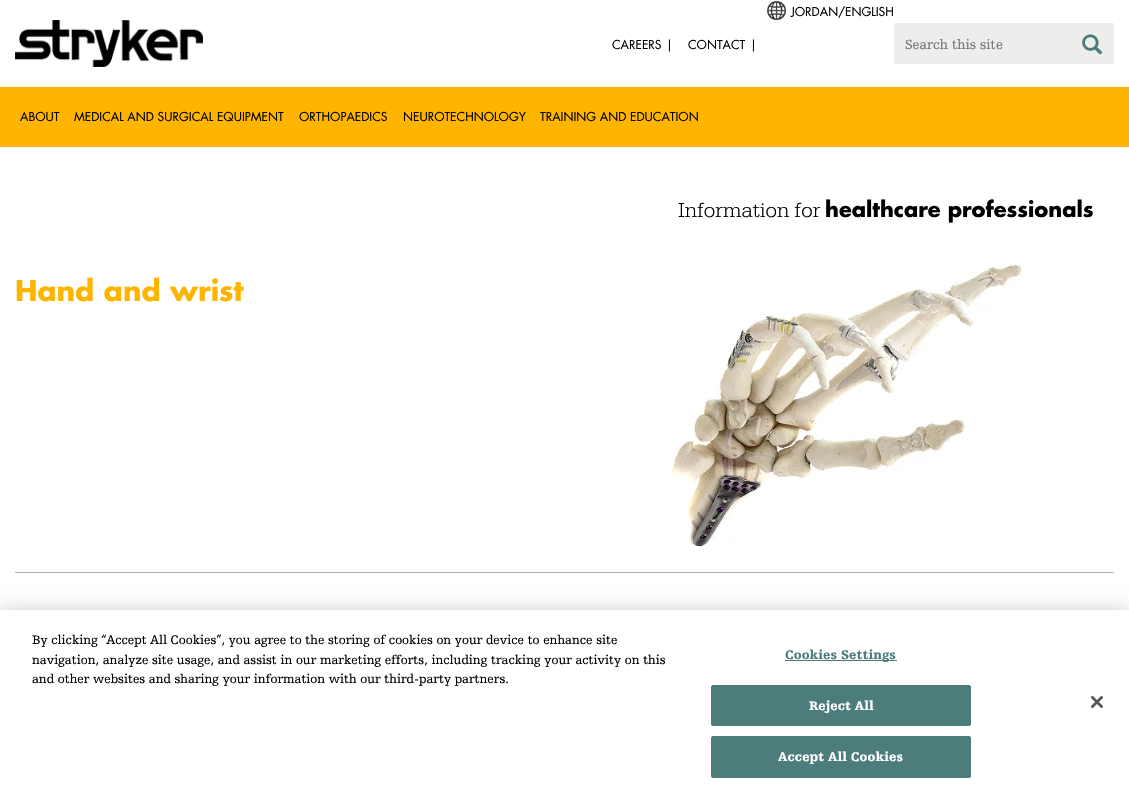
void draw(SkCanvas* canvas) {
	SkPaint paint;
	paint.setAntiAlias(true);
	auto spacedText = [&](const char* s, float x, float y, const SkFont& font, const SkPaint& ink, float letter, float word) {
		std::vector<SkGlyphID> glyphs(font.countText(s, strlen(s), SkTextEncoding::kUTF8));
		std::vector<float> xs(glyphs.size());
		font.textToGlyphs(s, strlen(s), SkTextEncoding::kUTF8, glyphs);
		font.getXPos(glyphs, xs, x);
		float extra = 0;
		for (size_t i = 0; i < glyphs.size(); i++) {
			xs[i] += extra;
			extra += letter + word * (glyphs[i] == font.unicharToGlyph(' '));
		}
		canvas->drawTextBlob(SkTextBlob::MakeFromPosHGlyphs(glyphs, xs, y, font), 0, 0, ink);
	};
	canvas->clear(0xffffffff);
	canvas->drawImageRect(SkImages::DeferredFromEncodedData(SkData::MakeFromFileName("img1.png")), SkRect::MakeXYWH(767, 1, 19, 19), SkSamplingOptions());
	SkFont f1(fontMgr->matchFamilyStyle("Futura", SkFontStyle::Normal()), 12);
	f1.setSubpixel(true);
	paint.setColor(0xff000000);
	canvas->drawString("JORDAN/ENGLISH", 791, 16, f1, paint);
	canvas->drawImageRect(SkImages::DeferredFromEncodedData(SkData::MakeFromFileName("img2.png")), SkRect::MakeXYWH(15, 20, 188, 47), SkSamplingOptions());
	canvas->drawString("CAREERS", 612, 49, f1, paint);
	canvas->drawString("|", 666, 49, f1, paint);
	canvas->drawString("CONTACT", 688, 49, f1, paint);
	canvas->drawString("|", 750, 49, f1, paint);
	paint.setColor(0xffedeeec);
	canvas->drawRect(SkRect::MakeXYWH(894, 23, 220, 41), paint);
	SkFont f2(fontMgr->matchFamilyStyle("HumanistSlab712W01", SkFontStyle::Normal()), 14);
	f2.setSubpixel(true);
	paint.setColor(0xff757575);
	canvas->drawString("Search this site", 905, 49, f2, paint);
	canvas->drawImageRect(SkImages::DeferredFromEncodedData(SkData::MakeFromFileName("img3.png")), SkRect::MakeXYWH(1082, 34, 21, 21), SkSamplingOptions());
	paint.setColor(0xffffb500);
	canvas->drawRect(SkRect::MakeXYWH(0, 87, 1129, 60), paint);
	paint.setColor(0xff000000);
	canvas->drawString("ABOUT", 20, 121, f1, paint);
	canvas->drawString("MEDICAL AND SURGICAL EQUIPMENT", 74, 121, f1, paint);
	canvas->drawString("ORTHOPAEDICS", 299, 121, f1, paint);
	canvas->drawString("NEUROTECHNOLOGY", 403, 121, f1, paint);
	canvas->drawString("TRAINING AND EDUCATION", 540, 121, f1, paint);
	SkFont f3(fontMgr->matchFamilyStyle("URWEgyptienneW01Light", SkFontStyle(300, SkFontStyle::kNormal_Width, SkFontStyle::kUpright_Slant)), 21);
	f3.setSubpixel(true);
	canvas->drawString("Information for", 678, 217, f3, paint);
	SkFont f4(fontMgr->matchFamilyStyle("Futura", SkFontStyle::Bold()), 21);
	f4.setSubpixel(true);
	canvas->drawString("healthcare professionals", 825, 217, f4, paint);
	paint.setColor(0xffb2b4ae);
	canvas->drawRect(SkRect::MakeXYWH(15, 572, 1099, 1), paint);
	SkFont f5(fontMgr->matchFamilyStyle("Futura", SkFontStyle::Bold()), 28);
	f5.setSubpixel(true);
	paint.setColor(0xffffb500);
	canvas->drawString("Hand and wrist", 15, 301, f5, paint);
	canvas->drawImageRect(SkImages::DeferredFromEncodedData(SkData::MakeFromFileName("img4.png")), SkRect::MakeXYWH(670, 264, 352, 285), SkSamplingOptions());
	paint.setColor(0x33000000);
	paint.setMaskFilter(SkMaskFilter::MakeBlur(kNormal_SkBlurStyle, 9));
	canvas->drawRect(SkRect::MakeXYWH(0, 610, 1129, 188), paint);
	paint.setMaskFilter(nullptr);
	paint.setColor(0xffffffff);
	canvas->drawRect(SkRect::MakeXYWH(0, 610, 1129, 188), paint);
	SkFont f6(fontMgr->matchFamilyStyle("HumanistSlab712W01", SkFontStyle::Normal()), 13);
	f6.setSubpixel(true);
	paint.setColor(0xff000000);
	canvas->drawString("By clicking “Accept All Cookies”, you agree to the storing of cookies on your device to enhance site", 32, 644, f6, paint);
	canvas->drawString("navigation, analyze site usage, and assist in our marketing efforts, including tracking your activity on this", 32, 664, f6, paint);
	canvas->drawString("and other websites and sharing your information with our third-party partners.", 32, 683, f6, paint);
	paint.setColor(0xff4c7d7a);
	canvas->drawRect(SkRect::MakeXYWH(785, 660, 112, 1), paint);
	SkFont f7(fontMgr->matchFamilyStyle("HumanistSlab712W01", SkFontStyle(900, SkFontStyle::kNormal_Width, SkFontStyle::kUpright_Slant)), 13);
	f7.setSubpixel(true);
	spacedText("Cookies Settings", 785, 659, f7, paint, 0.1, 0);
	canvas->drawRoundRect(SkRect::MakeXYWH(711.5, 685.5, 259, 40), 1.5, 1.5, paint);
	paint.setStroke(true);
	paint.setStrokeWidth(1);
	canvas->drawRoundRect(SkRect::MakeXYWH(711.5, 685.5, 259, 40), 1.5, 1.5, paint);
	paint.setStroke(false);
	paint.setColor(0xffffffff);
	spacedText("Reject All", 809, 710, f7, paint, 0.1, 0);
	paint.setColor(0xff4c7d7a);
	canvas->drawRoundRect(SkRect::MakeXYWH(711.5, 736.5, 259, 41), 1.5, 1.5, paint);
	paint.setStroke(true);
	canvas->drawRoundRect(SkRect::MakeXYWH(711.5, 736.5, 259, 41), 1.5, 1.5, paint);
	paint.setStroke(false);
	paint.setColor(0xffffffff);
	spacedText("Accept All Cookies", 778, 761, f7, paint, 0.1, 0);
	canvas->drawImageRect(SkImages::DeferredFromEncodedData(SkData::MakeFromFileName("img5.png")), SkRect::MakeXYWH(1091, 696, 12, 12), SkSamplingOptions());
}
